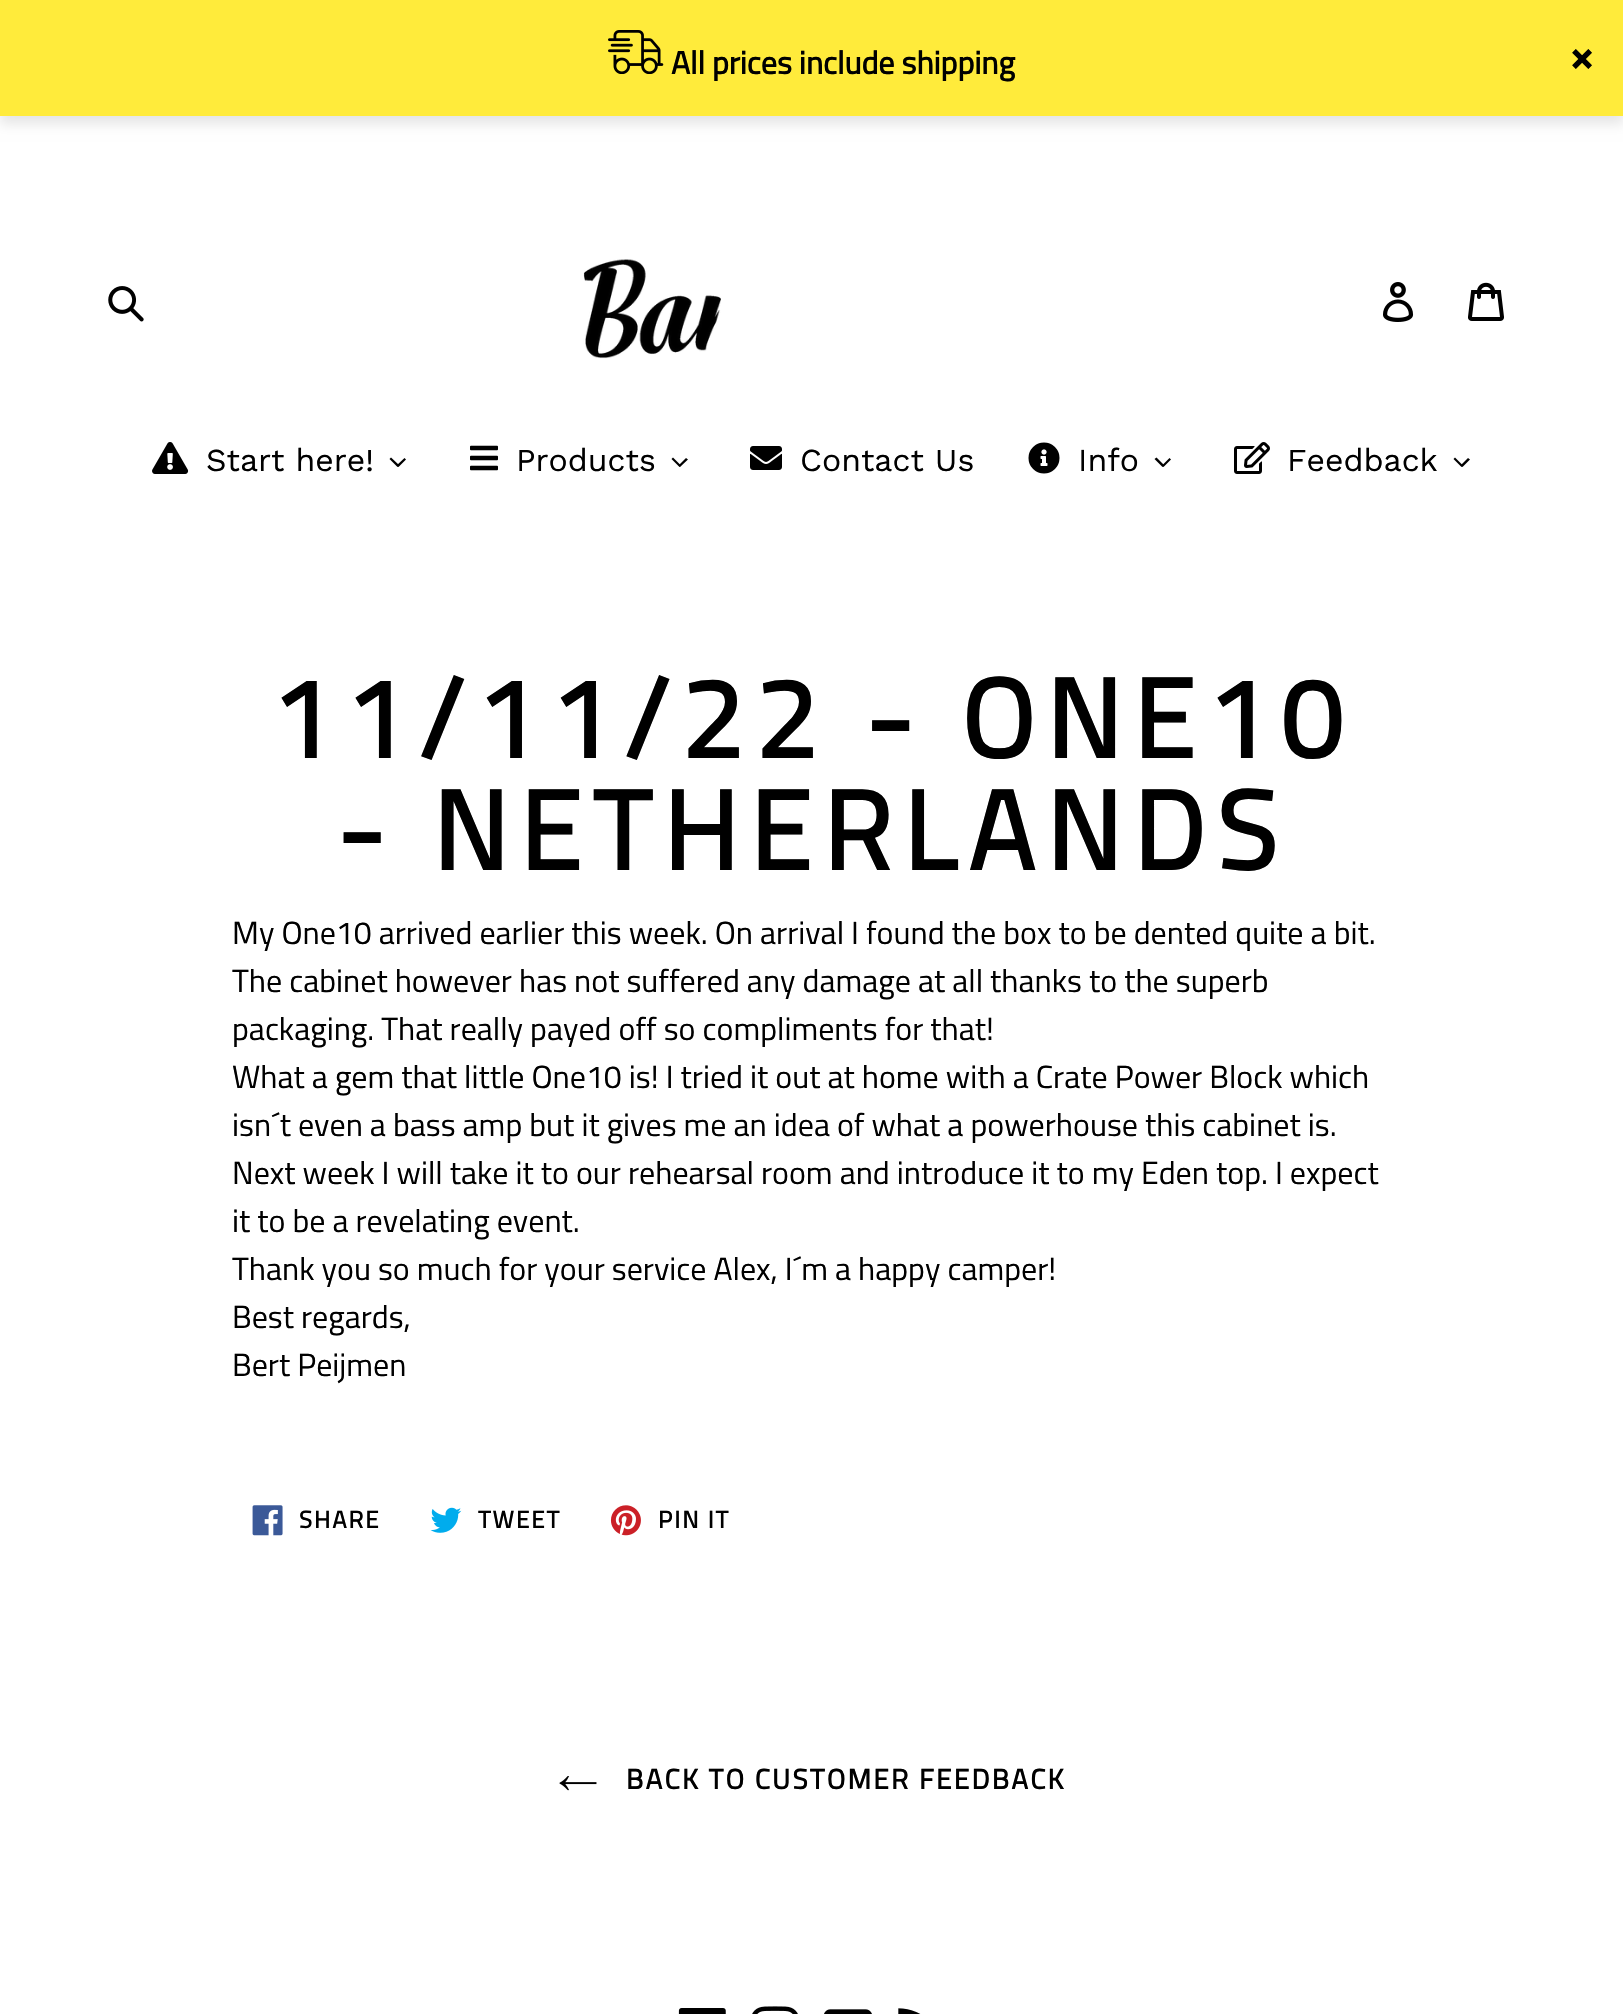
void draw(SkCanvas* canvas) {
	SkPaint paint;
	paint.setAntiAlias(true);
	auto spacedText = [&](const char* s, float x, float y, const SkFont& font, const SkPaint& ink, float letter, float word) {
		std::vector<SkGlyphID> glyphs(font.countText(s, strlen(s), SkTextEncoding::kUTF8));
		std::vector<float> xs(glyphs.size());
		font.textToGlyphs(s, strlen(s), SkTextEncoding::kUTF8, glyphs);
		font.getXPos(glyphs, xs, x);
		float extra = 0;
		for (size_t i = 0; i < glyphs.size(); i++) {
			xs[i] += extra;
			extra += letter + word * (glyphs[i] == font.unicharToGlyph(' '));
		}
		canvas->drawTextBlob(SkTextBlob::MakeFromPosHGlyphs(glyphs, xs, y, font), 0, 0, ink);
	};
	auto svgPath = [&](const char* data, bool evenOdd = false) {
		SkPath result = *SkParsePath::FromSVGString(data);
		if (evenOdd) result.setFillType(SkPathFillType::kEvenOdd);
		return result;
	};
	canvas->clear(0xffffffff);
	paint.setColor(0x1a000000);
	paint.setMaskFilter(SkMaskFilter::MakeBlur(kNormal_SkBlurStyle, 6));
	canvas->drawRect(SkRect::MakeXYWH(0, 8, 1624, 116), paint);
	paint.setMaskFilter(nullptr);
	paint.setColor(0xffffeb3b);
	canvas->drawRect(SkRect::MakeXYWH(0, 0, 1623, 116), paint);
	canvas->drawImageRect(SkImages::DeferredFromEncodedData(SkData::MakeFromFileName("img1.png")), SkRect::MakeXYWH(608, 30, 56, 44), SkSamplingOptions());
	SkFont f1(fontMgr->matchFamilyStyle("Titillium Web", SkFontStyle::Bold()), 32);
	f1.setSubpixel(true);
	paint.setColor(0xff000000);
	canvas->drawString("All prices include shipping", 671, 74, f1, paint);
	SkFont f2(fontMgr->matchFamilyStyle("Work Sans", SkFontStyle::Bold()), 40);
	f2.setSubpixel(true);
	canvas->drawString("×", 1570, 72, f2, paint);
	canvas->drawImageRect(SkImages::DeferredFromEncodedData(SkData::MakeFromFileName("img2.png")), SkRect::MakeXYWH(108, 286, 36, 36), SkSamplingOptions());
	canvas->drawImageRect(SkImages::DeferredFromEncodedData(SkData::MakeFromFileName("img3.png")), SkRect::MakeXYWH(583, 259, 138, 100), SkSamplingOptions());
	canvas->drawImageRect(SkImages::DeferredFromEncodedData(SkData::MakeFromFileName("img4.png")), SkRect::MakeXYWH(1383, 282, 31, 40), SkSamplingOptions());
	canvas->drawImageRect(SkImages::DeferredFromEncodedData(SkData::MakeFromFileName("img5.png")), SkRect::MakeXYWH(1468, 282, 36, 39), SkSamplingOptions());
	canvas->drawImageRect(SkImages::DeferredFromEncodedData(SkData::MakeFromFileName("img6.png")), SkRect::MakeXYWH(152, 442, 37, 32), SkSamplingOptions());
	SkFont f3(fontMgr->matchFamilyStyle("Work Sans", SkFontStyle::Normal()), 32);
	f3.setSubpixel(true);
	canvas->drawString("Start here!", 206, 471, f3, paint);
	canvas->drawPath(svgPath("M404.5 458L406 459.5L398.5 467L396.5 465.5Z"), paint);
	canvas->drawPath(svgPath("M391 457.5L399.5 465.5L397.5 467L389.5 459Z"), paint);
	canvas->drawImageRect(SkImages::DeferredFromEncodedData(SkData::MakeFromFileName("img7.png")), SkRect::MakeXYWH(470, 445, 28, 26), SkSamplingOptions());
	canvas->drawString("Products", 516, 471, f3, paint);
	canvas->drawPath(svgPath("M686 458L688 459.5L680 467L678.5 465.5Z"), paint);
	canvas->drawPath(svgPath("M673 457.5L681 465.5L679.5 467L671.5 459Z"), paint);
	canvas->drawImageRect(SkImages::DeferredFromEncodedData(SkData::MakeFromFileName("img8.png")), SkRect::MakeXYWH(750, 446, 32, 24), SkSamplingOptions());
	canvas->drawString("Contact Us", 800, 471, f3, paint);
	canvas->drawImageRect(SkImages::DeferredFromEncodedData(SkData::MakeFromFileName("img9.png")), SkRect::MakeXYWH(1028, 442, 32, 32), SkSamplingOptions());
	canvas->drawString("Info", 1078, 471, f3, paint);
	canvas->drawPath(svgPath("M1169.5 458L1171 459.5L1163.5 467L1162 465.5Z"), paint);
	canvas->drawPath(svgPath("M1156.5 457.5L1164.5 465.5L1162.5 467L1154.5 459Z"), paint);
	canvas->drawImageRect(SkImages::DeferredFromEncodedData(SkData::MakeFromFileName("img10.png")), SkRect::MakeXYWH(1234, 442, 36, 32), SkSamplingOptions());
	canvas->drawString("Feedback", 1287, 471, f3, paint);
	canvas->drawPath(svgPath("M1468 458L1470 459.5L1462.5 467L1460.5 465.5Z"), paint);
	canvas->drawPath(svgPath("M1455 457.5L1463 465.5L1461.5 467L1453.5 459Z"), paint);
	SkFont f4(fontMgr->matchFamilyStyle("Titillium Web", SkFontStyle::Bold()), 112);
	f4.setSubpixel(true);
	spacedText("11/11/22 - ONE10", 270, 758, f4, paint, 11.25, 0);
	spacedText("- NETHERLANDS", 336, 870, f4, paint, 11.25, 0);
	SkFont f5(fontMgr->matchFamilyStyle("Titillium Web", SkFontStyle::Normal()), 32);
	f5.setSubpixel(true);
	canvas->drawString("My One10 arrived earlier this week. On arrival I found the box to be dented quite a bit.", 232, 944, f5, paint);
	canvas->drawString("The cabinet however has not suffered any damage at all thanks to the superb", 232, 992, f5, paint);
	canvas->drawString("packaging. That really payed off so compliments for that!", 232, 1040, f5, paint);
	canvas->drawString("What a gem that little One10 is! I tried it out at home with a Crate Power Block which", 232, 1088, f5, paint);
	canvas->drawString("isn´t even a bass amp but it gives me an idea of what a powerhouse this cabinet is.", 232, 1136, f5, paint);
	canvas->drawString("Next week I will take it to our rehearsal room and introduce it to my Eden top. I expect", 232, 1184, f5, paint);
	canvas->drawString("it to be a revelating event.", 232, 1232, f5, paint);
	canvas->drawString("Thank you so much for your service Alex, I´m a happy camper!", 232, 1280, f5, paint);
	canvas->drawString("Best regards,", 232, 1328, f5, paint);
	canvas->drawString("Bert Peijmen", 232, 1376, f5, paint);
	canvas->drawImageRect(SkImages::DeferredFromEncodedData(SkData::MakeFromFileName("img11.png")), SkRect::MakeXYWH(252, 1505, 31, 31), SkSamplingOptions());
	SkFont f6(fontMgr->matchFamilyStyle("Titillium Web", SkFontStyle::Bold()), 24);
	f6.setSubpixel(true);
	spacedText("SHARE", 299, 1528, f6, paint, 2, 0);
	canvas->drawImageRect(SkImages::DeferredFromEncodedData(SkData::MakeFromFileName("img12.png")), SkRect::MakeXYWH(430, 1507, 32, 26), SkSamplingOptions());
	spacedText("TWEET", 478, 1528, f6, paint, 2, 0);
	canvas->drawImageRect(SkImages::DeferredFromEncodedData(SkData::MakeFromFileName("img13.png")), SkRect::MakeXYWH(610, 1505, 31, 31), SkSamplingOptions());
	spacedText("PIN IT", 658, 1528, f6, paint, 2, 0);
	canvas->drawImageRect(SkImages::DeferredFromEncodedData(SkData::MakeFromFileName("img14.png")), SkRect::MakeXYWH(559, 1776, 38, 15), SkSamplingOptions());
	SkFont f7(fontMgr->matchFamilyStyle("Titillium Web", SkFontStyle::Bold()), 28);
	f7.setSubpixel(true);
	spacedText("BACK TO CUSTOMER FEEDBACK", 626, 1789, f7, paint, 2.25, 0);
	canvas->drawImageRect(SkImages::DeferredFromEncodedData(SkData::MakeFromFileName("img15.png")), SkRect::MakeXYWH(678, 2008, 48, 6), SkSamplingOptions());
	canvas->drawImageRect(SkImages::DeferredFromEncodedData(SkData::MakeFromFileName("img16.png")), SkRect::MakeXYWH(752, 2006, 46, 8), SkSamplingOptions());
	canvas->drawImageRect(SkImages::DeferredFromEncodedData(SkData::MakeFromFileName("img17.png")), SkRect::MakeXYWH(824, 2009, 48, 5), SkSamplingOptions());
	canvas->drawImageRect(SkImages::DeferredFromEncodedData(SkData::MakeFromFileName("img18.png")), SkRect::MakeXYWH(898, 2008, 23, 6), SkSamplingOptions());
}
